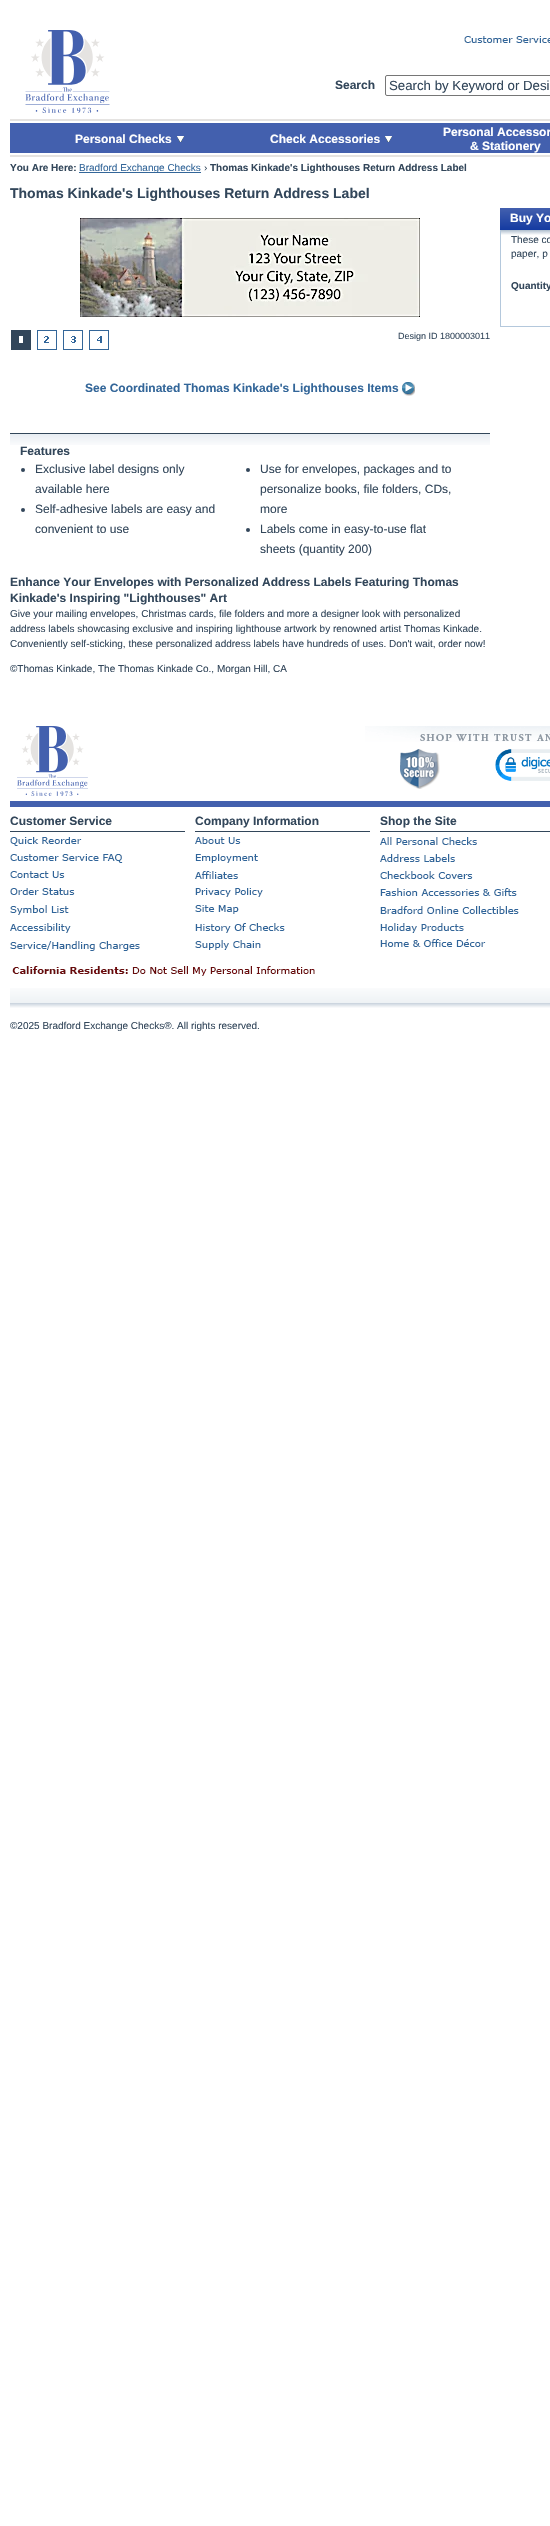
void draw(SkCanvas* canvas) {
	SkPaint paint;
	paint.setAntiAlias(true);
	canvas->clear(0xffffffff);
	canvas->drawImageRect(SkImages::DeferredFromEncodedData(SkData::MakeFromFileName("img1.png")), SkRect::MakeXYWH(25, 30, 85, 83), SkSamplingOptions());
	canvas->drawImageRect(SkImages::DeferredFromEncodedData(SkData::MakeFromFileName("img2.png")), SkRect::MakeXYWH(464, 36, 86, 7), SkSamplingOptions());
	SkFont f1(fontMgr->matchFamilyStyle("Liberation Sans", SkFontStyle::Bold()), 12);
	f1.setSubpixel(true);
	paint.setColor(0xff32465a);
	canvas->drawString("Search", 335, 89, f1, paint);
	paint.setStroke(true);
	paint.setStrokeWidth(1);
	paint.setColor(0xff767676);
	canvas->drawRoundRect(SkRect::MakeXYWH(385.5, 75.5, 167, 20), 1.5, 1.5, paint);
	SkFont f2(fontMgr->matchFamilyStyle("Liberation Sans", SkFontStyle::Normal()), 13.25);
	f2.setSubpixel(true);
	paint.setStroke(false);
	paint.setColor(0xff32465a);
	canvas->drawString("Search by Keyword or Desi", 389, 90, f2, paint);
	paint.setColor(0xff4360ae);
	canvas->drawRect(SkRect::MakeXYWH(10, 123, 540, 30), paint);
	paint.setColor(0xffe5e3e1);
	canvas->drawRect(SkRect::MakeXYWH(10, 119, 540, 2), paint);
	paint.setColor(0xffffffff);
	canvas->drawString("Personal Checks", 75, 143, f1, paint);
	canvas->drawImageRect(SkImages::DeferredFromEncodedData(SkData::MakeFromFileName("img3.png")), SkRect::MakeXYWH(177, 136, 7, 6), SkSamplingOptions());
	canvas->drawString("Check Accessories", 270, 143, f1, paint);
	canvas->drawImageRect(SkImages::DeferredFromEncodedData(SkData::MakeFromFileName("img3.png")), SkRect::MakeXYWH(385, 136, 7, 6), SkSamplingOptions());
	canvas->drawString("Personal Accessor", 443, 136, f1, paint);
	canvas->drawString("& Stationery", 470, 150, f1, paint);
	paint.setColor(0xffe5e3e1);
	canvas->drawRect(SkRect::MakeXYWH(10, 155, 540, 2), paint);
	SkFont f3(fontMgr->matchFamilyStyle("Liberation Sans", SkFontStyle::Bold()), 10);
	f3.setSubpixel(true);
	paint.setColor(0xff32465a);
	canvas->drawString("You Are Here:", 10, 171, f3, paint);
	paint.setColor(0xff336699);
	canvas->drawRect(SkRect::MakeXYWH(79, 172, 122, 1), paint);
	SkFont f4(fontMgr->matchFamilyStyle("Liberation Sans", SkFontStyle::Normal()), 10);
	f4.setSubpixel(true);
	canvas->drawString("Bradford Exchange Checks", 79, 171, f4, paint);
	paint.setColor(0xff32465a);
	canvas->drawString("›", 204, 171, f4, paint);
	canvas->drawString("Thomas Kinkade's Lighthouses Return Address Label", 210, 171, f3, paint);
	SkFont f5(fontMgr->matchFamilyStyle("Liberation Sans", SkFontStyle::Bold()), 14);
	f5.setSubpixel(true);
	canvas->drawString("Thomas Kinkade's Lighthouses Return Address Label", 10, 198, f5, paint);
	{
		const SkColor colors[] = {0xff4360ae, 0xff143aa1};
		const float stops[] = {0, 1};
		const SkPoint ends[] = {{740, 208}, {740, 230}};
		paint.setShader(SkGradientShader::MakeLinear(ends, colors, stops, 2, SkTileMode::kClamp));
		paint.setAlpha(255);
	}
	canvas->drawRect(SkRect::MakeXYWH(500, 208, 50, 22), paint);
	paint.setShader(nullptr);
	paint.setColor(0xffffffff);
	canvas->drawString("Buy Yo", 510, 222, f1, paint);
	canvas->drawImageRect(SkImages::DeferredFromEncodedData(SkData::MakeFromFileName("img4.png")), SkRect::MakeXYWH(501, 230, 49, 5), SkSamplingOptions());
	paint.setColor(0xffb4c8dc);
	canvas->drawRect(SkRect::MakeXYWH(500, 326, 50, 1), paint);
	canvas->drawRect(SkRect::MakeXYWH(500, 230, 1, 97), paint);
	paint.setColor(0xff32465a);
	canvas->drawString("These co", 511, 243, f4, paint);
	canvas->drawString("paper, p", 511, 257, f4, paint);
	canvas->drawString("Quantity", 511, 289, f3, paint);
	canvas->drawImageRect(SkImages::DeferredFromEncodedData(SkData::MakeFromFileName("img5.png")), SkRect::MakeXYWH(80, 218, 340, 99), SkSamplingOptions());
	canvas->drawRect(SkRect::MakeXYWH(11, 330, 20, 20), paint);
	paint.setColor(0xffffffff);
	canvas->drawRect(SkRect::MakeXYWH(19, 336, 4, 7), paint);
	paint.setStroke(true);
	paint.setColor(0xff336699);
	canvas->drawRect(SkRect::MakeXYWH(37.5, 330.5, 19, 19), paint);
	canvas->drawImageRect(SkImages::DeferredFromEncodedData(SkData::MakeFromFileName("img6.png")), SkRect::MakeXYWH(44, 336, 5, 7), SkSamplingOptions());
	canvas->drawRect(SkRect::MakeXYWH(63.5, 330.5, 19, 19), paint);
	canvas->drawImageRect(SkImages::DeferredFromEncodedData(SkData::MakeFromFileName("img7.png")), SkRect::MakeXYWH(71, 336, 5, 7), SkSamplingOptions());
	canvas->drawRect(SkRect::MakeXYWH(89.5, 330.5, 19, 19), paint);
	canvas->drawImageRect(SkImages::DeferredFromEncodedData(SkData::MakeFromFileName("img8.png")), SkRect::MakeXYWH(97, 336, 5, 7), SkSamplingOptions());
	SkFont f6(fontMgr->matchFamilyStyle("Liberation Sans", SkFontStyle::Normal()), 9);
	f6.setSubpixel(true);
	paint.setStroke(false);
	paint.setColor(0xff32465a);
	canvas->drawString("Design ID 1800003011", 398, 339, f6, paint);
	paint.setColor(0xff336699);
	canvas->drawString("See Coordinated Thomas Kinkade's Lighthouses Items", 85, 392, f1, paint);
	canvas->drawImageRect(SkImages::DeferredFromEncodedData(SkData::MakeFromFileName("img9.png")), SkRect::MakeXYWH(402, 382, 13, 14), SkSamplingOptions());
	canvas->drawImageRect(SkImages::DeferredFromEncodedData(SkData::MakeFromFileName("img10.png")), SkRect::MakeXYWH(10, 433, 480, 12), SkSamplingOptions());
	paint.setColor(0xff32465a);
	canvas->drawString("Features", 20, 455, f1, paint);
	canvas->drawCircle(23, 470, 2, paint);
	SkFont f7(fontMgr->matchFamilyStyle("Liberation Sans", SkFontStyle::Normal()), 12);
	f7.setSubpixel(true);
	canvas->drawString("Exclusive label designs only", 35, 473, f7, paint);
	canvas->drawString("available here", 35, 493, f7, paint);
	canvas->drawCircle(23, 510, 2, paint);
	canvas->drawString("Self-adhesive labels are easy and", 35, 513, f7, paint);
	canvas->drawString("convenient to use", 35, 533, f7, paint);
	canvas->drawCircle(248, 470, 2, paint);
	canvas->drawString("Use for envelopes, packages and to", 260, 473, f7, paint);
	canvas->drawString("personalize books, file folders, CDs,", 260, 493, f7, paint);
	canvas->drawString("more", 260, 513, f7, paint);
	canvas->drawCircle(248, 530, 2, paint);
	canvas->drawString("Labels come in easy-to-use flat", 260, 533, f7, paint);
	canvas->drawString("sheets (quantity 200)", 260, 553, f7, paint);
	canvas->drawString("Enhance Your Envelopes with Personalized Address Labels Featuring Thomas", 10, 586, f1, paint);
	canvas->drawString("Kinkade's Inspiring \"Lighthouses\" Art", 10, 602, f1, paint);
	canvas->drawString("Give your mailing envelopes, Christmas cards, file folders and more a designer look with personalized", 10, 617, f4, paint);
	canvas->drawString("address labels showcasing exclusive and inspiring lighthouse artwork by renowned artist Thomas Kinkade.", 10, 632, f4, paint);
	canvas->drawString("Conveniently self-sticking, these personalized address labels have hundreds of uses. Don't wait, order now!", 10, 647, f4, paint);
	canvas->drawString("©Thomas Kinkade, The Thomas Kinkade Co., Morgan Hill, CA", 10, 672, f4, paint);
	canvas->drawImageRect(SkImages::DeferredFromEncodedData(SkData::MakeFromFileName("img11.png")), SkRect::MakeXYWH(17, 726, 71, 70), SkSamplingOptions());
	canvas->drawImageRect(SkImages::DeferredFromEncodedData(SkData::MakeFromFileName("img12.png")), SkRect::MakeXYWH(365, 726, 185, 16), SkSamplingOptions());
	canvas->drawImageRect(SkImages::DeferredFromEncodedData(SkData::MakeFromFileName("img13.png")), SkRect::MakeXYWH(400, 749, 40, 40), SkSamplingOptions());
	canvas->drawImageRect(SkImages::DeferredFromEncodedData(SkData::MakeFromFileName("img14.png")), SkRect::MakeXYWH(495, 749, 55, 32), SkSamplingOptions());
	paint.setColor(0xff4360ae);
	canvas->drawRect(SkRect::MakeXYWH(10, 801, 540, 6), paint);
	paint.setColor(0xff32465a);
	canvas->drawRect(SkRect::MakeXYWH(10, 831, 175, 1), paint);
	canvas->drawString("Customer Service", 10, 825, f1, paint);
	canvas->drawImageRect(SkImages::DeferredFromEncodedData(SkData::MakeFromFileName("img15.png")), SkRect::MakeXYWH(10, 837, 72, 9), SkSamplingOptions());
	canvas->drawImageRect(SkImages::DeferredFromEncodedData(SkData::MakeFromFileName("img16.png")), SkRect::MakeXYWH(10, 854, 113, 9), SkSamplingOptions());
	canvas->drawImageRect(SkImages::DeferredFromEncodedData(SkData::MakeFromFileName("img17.png")), SkRect::MakeXYWH(10, 871, 55, 7), SkSamplingOptions());
	canvas->drawImageRect(SkImages::DeferredFromEncodedData(SkData::MakeFromFileName("img18.png")), SkRect::MakeXYWH(10, 888, 65, 7), SkSamplingOptions());
	canvas->drawImageRect(SkImages::DeferredFromEncodedData(SkData::MakeFromFileName("img19.png")), SkRect::MakeXYWH(10, 905, 59, 10), SkSamplingOptions());
	canvas->drawImageRect(SkImages::DeferredFromEncodedData(SkData::MakeFromFileName("img20.png")), SkRect::MakeXYWH(10, 923, 61, 10), SkSamplingOptions());
	canvas->drawImageRect(SkImages::DeferredFromEncodedData(SkData::MakeFromFileName("img21.png")), SkRect::MakeXYWH(10, 941, 130, 10), SkSamplingOptions());
	canvas->drawRect(SkRect::MakeXYWH(195, 831, 175, 1), paint);
	canvas->drawString("Company Information", 195, 825, f1, paint);
	canvas->drawImageRect(SkImages::DeferredFromEncodedData(SkData::MakeFromFileName("img22.png")), SkRect::MakeXYWH(195, 837, 46, 7), SkSamplingOptions());
	canvas->drawImageRect(SkImages::DeferredFromEncodedData(SkData::MakeFromFileName("img23.png")), SkRect::MakeXYWH(195, 854, 63, 9), SkSamplingOptions());
	canvas->drawImageRect(SkImages::DeferredFromEncodedData(SkData::MakeFromFileName("img24.png")), SkRect::MakeXYWH(195, 871, 43, 8), SkSamplingOptions());
	canvas->drawImageRect(SkImages::DeferredFromEncodedData(SkData::MakeFromFileName("img25.png")), SkRect::MakeXYWH(195, 888, 68, 9), SkSamplingOptions());
	canvas->drawImageRect(SkImages::DeferredFromEncodedData(SkData::MakeFromFileName("img26.png")), SkRect::MakeXYWH(195, 905, 44, 9), SkSamplingOptions());
	canvas->drawImageRect(SkImages::DeferredFromEncodedData(SkData::MakeFromFileName("img27.png")), SkRect::MakeXYWH(195, 923, 90, 10), SkSamplingOptions());
	canvas->drawImageRect(SkImages::DeferredFromEncodedData(SkData::MakeFromFileName("img28.png")), SkRect::MakeXYWH(195, 940, 66, 10), SkSamplingOptions());
	canvas->drawRect(SkRect::MakeXYWH(380, 831, 170, 1), paint);
	canvas->drawString("Shop the Site", 380, 825, f1, paint);
	canvas->drawImageRect(SkImages::DeferredFromEncodedData(SkData::MakeFromFileName("img29.png")), SkRect::MakeXYWH(380, 837, 97, 8), SkSamplingOptions());
	canvas->drawImageRect(SkImages::DeferredFromEncodedData(SkData::MakeFromFileName("img30.png")), SkRect::MakeXYWH(380, 854, 75, 8), SkSamplingOptions());
	canvas->drawImageRect(SkImages::DeferredFromEncodedData(SkData::MakeFromFileName("img31.png")), SkRect::MakeXYWH(380, 871, 93, 8), SkSamplingOptions());
	canvas->drawImageRect(SkImages::DeferredFromEncodedData(SkData::MakeFromFileName("img32.png")), SkRect::MakeXYWH(380, 888, 137, 8), SkSamplingOptions());
	canvas->drawImageRect(SkImages::DeferredFromEncodedData(SkData::MakeFromFileName("img33.png")), SkRect::MakeXYWH(380, 906, 139, 8), SkSamplingOptions());
	canvas->drawImageRect(SkImages::DeferredFromEncodedData(SkData::MakeFromFileName("img34.png")), SkRect::MakeXYWH(380, 923, 84, 10), SkSamplingOptions());
	canvas->drawImageRect(SkImages::DeferredFromEncodedData(SkData::MakeFromFileName("img35.png")), SkRect::MakeXYWH(380, 939, 106, 8), SkSamplingOptions());
	canvas->drawImageRect(SkImages::DeferredFromEncodedData(SkData::MakeFromFileName("img36.png")), SkRect::MakeXYWH(12, 966, 303, 10), SkSamplingOptions());
	canvas->drawImageRect(SkImages::DeferredFromEncodedData(SkData::MakeFromFileName("img37.png")), SkRect::MakeXYWH(10, 988, 540, 20), SkSamplingOptions());
	canvas->drawString("©2025 Bradford Exchange Checks®. All rights reserved.", 10, 1029, f4, paint);
}
